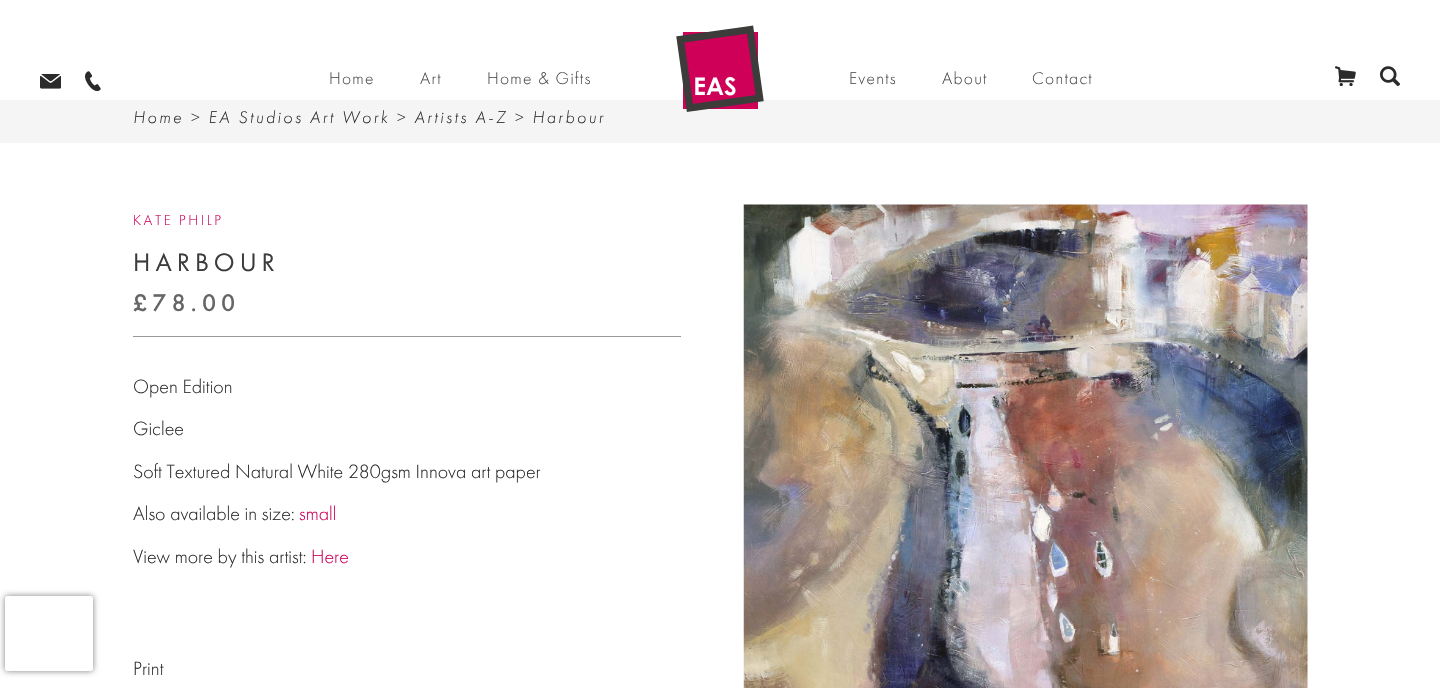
void draw(SkCanvas* canvas) {
	SkPaint paint;
	paint.setAntiAlias(true);
	auto spacedText = [&](const char* s, float x, float y, const SkFont& font, const SkPaint& ink, float letter, float word) {
		std::vector<SkGlyphID> glyphs(font.countText(s, strlen(s), SkTextEncoding::kUTF8));
		std::vector<float> xs(glyphs.size());
		font.textToGlyphs(s, strlen(s), SkTextEncoding::kUTF8, glyphs);
		font.getXPos(glyphs, xs, x);
		float extra = 0;
		for (size_t i = 0; i < glyphs.size(); i++) {
			xs[i] += extra;
			extra += letter + word * (glyphs[i] == font.unicharToGlyph(' '));
		}
		canvas->drawTextBlob(SkTextBlob::MakeFromPosHGlyphs(glyphs, xs, y, font), 0, 0, ink);
	};
	auto svgPath = [&](const char* data, bool evenOdd = false) {
		SkPath result = *SkParsePath::FromSVGString(data);
		if (evenOdd) result.setFillType(SkPathFillType::kEvenOdd);
		return result;
	};
	canvas->clear(0xffffffff);
	canvas->drawImageRect(SkImages::DeferredFromEncodedData(SkData::MakeFromFileName("img1.png")), SkRect::MakeXYWH(40, 74, 21, 15), SkSamplingOptions());
	canvas->drawImageRect(SkImages::DeferredFromEncodedData(SkData::MakeFromFileName("img2.png")), SkRect::MakeXYWH(85, 71, 16, 20), SkSamplingOptions());
	SkFont f1(fontMgr->matchFamilyStyle("Futura PT", SkFontStyle(300, SkFontStyle::kNormal_Width, SkFontStyle::kUpright_Slant)), 17.5);
	f1.setSubpixel(true);
	paint.setColor(0xff4c4c4c);
	spacedText("Home", 329, 84, f1, paint, 1.25, 0);
	spacedText("Art", 420, 84, f1, paint, 1.25, 0);
	spacedText("Home & Gifts", 487, 84, f1, paint, 1.25, 0);
	paint.setColor(0xfff5f5f5);
	canvas->drawRect(SkRect::MakeXYWH(0, 100, 1440, 43), paint);
	canvas->drawImageRect(SkImages::DeferredFromEncodedData(SkData::MakeFromFileName("img3.png")), SkRect::MakeXYWH(676, 25, 88, 87), SkSamplingOptions());
	paint.setColor(0xff4c4c4c);
	spacedText("Events", 849, 84, f1, paint, 1.25, 0);
	spacedText("About", 942, 84, f1, paint, 1.25, 0);
	spacedText("Contact", 1032, 84, f1, paint, 1.25, 0);
	canvas->drawImageRect(SkImages::DeferredFromEncodedData(SkData::MakeFromFileName("img4.png")), SkRect::MakeXYWH(1335, 66, 21, 20), SkSamplingOptions());
	canvas->drawImageRect(SkImages::DeferredFromEncodedData(SkData::MakeFromFileName("img5.png")), SkRect::MakeXYWH(1380, 66, 20, 20), SkSamplingOptions());
	canvas->save();
	canvas->clipPath(svgPath("M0 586H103V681H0ZM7.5 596H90.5C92 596 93 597 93 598.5V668.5C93 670 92 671 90.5 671H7.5C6 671 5 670 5 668.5V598.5C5 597 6 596 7.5 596Z", true), true);
	paint.setColor(0xff808080);
	paint.setMaskFilter(SkMaskFilter::MakeBlur(kNormal_SkBlurStyle, 3));
	canvas->drawRoundRect(SkRect::MakeXYWH(5, 596, 88, 75), 2.5, 2.5, paint);
	paint.setMaskFilter(nullptr);
	canvas->restore();
	SkFont f2(fontMgr->matchFamilyStyle("Futura PT", SkFontStyle(300, SkFontStyle::kNormal_Width, SkFontStyle::kItalic_Slant)), 17.5);
	f2.setSubpixel(true);
	paint.setColor(0xff2b2b2b);
	spacedText("Home > EA Studios Art Work > Artists A-Z > Harbour", 133, 123, f2, paint, 2.5, 0);
	SkFont f3(fontMgr->matchFamilyStyle("Futura PT", SkFontStyle(300, SkFontStyle::kNormal_Width, SkFontStyle::kUpright_Slant)), 15);
	f3.setSubpixel(true);
	paint.setColor(0xffce0058);
	spacedText("KATE PHILP", 133, 225, f3, paint, 2.5, 0);
	SkFont f4(fontMgr->matchFamilyStyle("Futura PT", SkFontStyle::Normal()), 26.25);
	f4.setSubpixel(true);
	paint.setColor(0xff3c3c3b);
	spacedText("HARBOUR", 133, 271, f4, paint, 5, 0);
	SkFont f5(fontMgr->matchFamilyStyle("Futura PT", SkFontStyle(500, SkFontStyle::kNormal_Width, SkFontStyle::kUpright_Slant)), 25);
	f5.setSubpixel(true);
	paint.setColor(0xff666666);
	spacedText("£78.00", 133, 311, f5, paint, 5, 0);
	paint.setColor(0xff999999);
	canvas->drawRect(SkRect::MakeXYWH(133, 336, 548, 1), paint);
	SkFont f6(fontMgr->matchFamilyStyle("Futura PT", SkFontStyle(300, SkFontStyle::kNormal_Width, SkFontStyle::kUpright_Slant)), 20);
	f6.setSubpixel(true);
	paint.setColor(0xff2b2b2b);
	canvas->drawString("Open Edition", 133, 393, f6, paint);
	canvas->drawString("Giclee", 133, 435, f6, paint);
	canvas->drawString("Soft Textured Natural White 280gsm Innova art paper", 133, 478, f6, paint);
	canvas->drawString("Also available in size:", 133, 520, f6, paint);
	paint.setColor(0xffce0058);
	canvas->drawString("small", 299, 520, f6, paint);
	paint.setColor(0xff2b2b2b);
	canvas->drawString("View more by this artist:", 133, 563, f6, paint);
	paint.setColor(0xffce0058);
	canvas->drawString("Here", 311, 563, f6, paint);
	paint.setColor(0xff2b2b2b);
	canvas->drawString("Print", 133, 675, f6, paint);
	canvas->drawImageRect(SkImages::DeferredFromEncodedData(SkData::MakeFromFileName("img6.png")), SkRect::MakeXYWH(743, 204, 565, 484), SkSamplingOptions());
}
